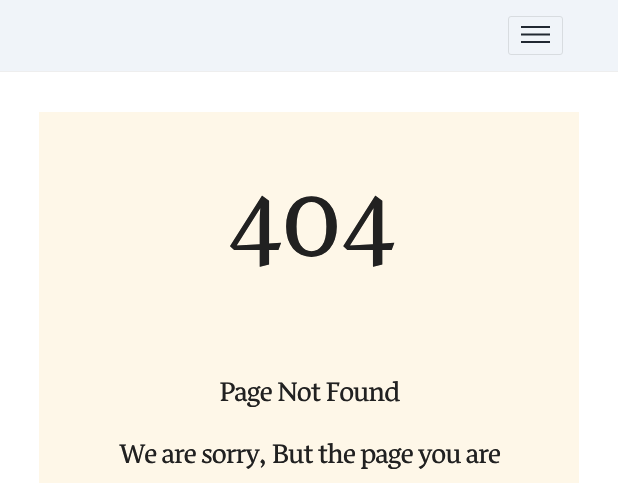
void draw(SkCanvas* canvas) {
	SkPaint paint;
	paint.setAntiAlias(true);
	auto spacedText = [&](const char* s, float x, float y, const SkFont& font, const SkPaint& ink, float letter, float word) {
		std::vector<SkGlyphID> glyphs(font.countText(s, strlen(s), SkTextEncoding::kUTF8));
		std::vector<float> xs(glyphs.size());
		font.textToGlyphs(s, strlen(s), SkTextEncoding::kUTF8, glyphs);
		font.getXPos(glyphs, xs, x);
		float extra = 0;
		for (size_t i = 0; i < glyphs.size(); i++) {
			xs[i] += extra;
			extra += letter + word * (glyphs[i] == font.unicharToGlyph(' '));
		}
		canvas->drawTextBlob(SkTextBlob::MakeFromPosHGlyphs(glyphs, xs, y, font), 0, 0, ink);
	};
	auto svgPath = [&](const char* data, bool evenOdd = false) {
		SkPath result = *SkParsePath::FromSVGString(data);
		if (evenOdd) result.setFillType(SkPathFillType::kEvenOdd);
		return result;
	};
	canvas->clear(0xffffffff);
	paint.setColor(0xfff0f4f9);
	canvas->drawRect(SkRect::MakeXYWH(0, 0, 618, 71), paint);
	paint.setColor(0xffeeeeee);
	canvas->drawRect(SkRect::MakeXYWH(0, 71, 618, 1), paint);
	paint.setStroke(true);
	paint.setStrokeWidth(1);
	paint.setColor(0xffd8dce0);
	canvas->drawRoundRect(SkRect::MakeXYWH(508.5, 16.5, 54, 38), 2.5, 2.5, paint);
	canvas->save();
	canvas->clipRect(SkRect::MakeXYWH(521, 21, 29, 29));
	paint.setStrokeWidth(1.9);
	paint.setStrokeCap(SkPaint::kRound_Cap);
	paint.setColor(0xff212832);
	canvas->drawPath(svgPath("M521 27H550M521 34.5H550M521 42H550"), paint);
	canvas->restore();
	paint.setStroke(false);
	paint.setColor(0xfffef7e8);
	canvas->drawRect(SkRect::MakeXYWH(39, 112, 540, 371), paint);
	SkFont f1(fontMgr->matchFamilyStyle("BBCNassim", SkFontStyle::Normal()), 130);
	f1.setSubpixel(true);
	paint.setColor(0xff212121);
	spacedText("404", 225, 256, f1, paint, -5, 0);
	SkFont f2(fontMgr->matchFamilyStyle("BBCNassim", SkFontStyle::Normal()), 35.25);
	f2.setSubpixel(true);
	spacedText("Page Not Found", 219, 401, f2, paint, -1.4, 0);
	spacedText("We are sorry, But the page you are", 119, 463, f2, paint, -1.4, 0);
}
